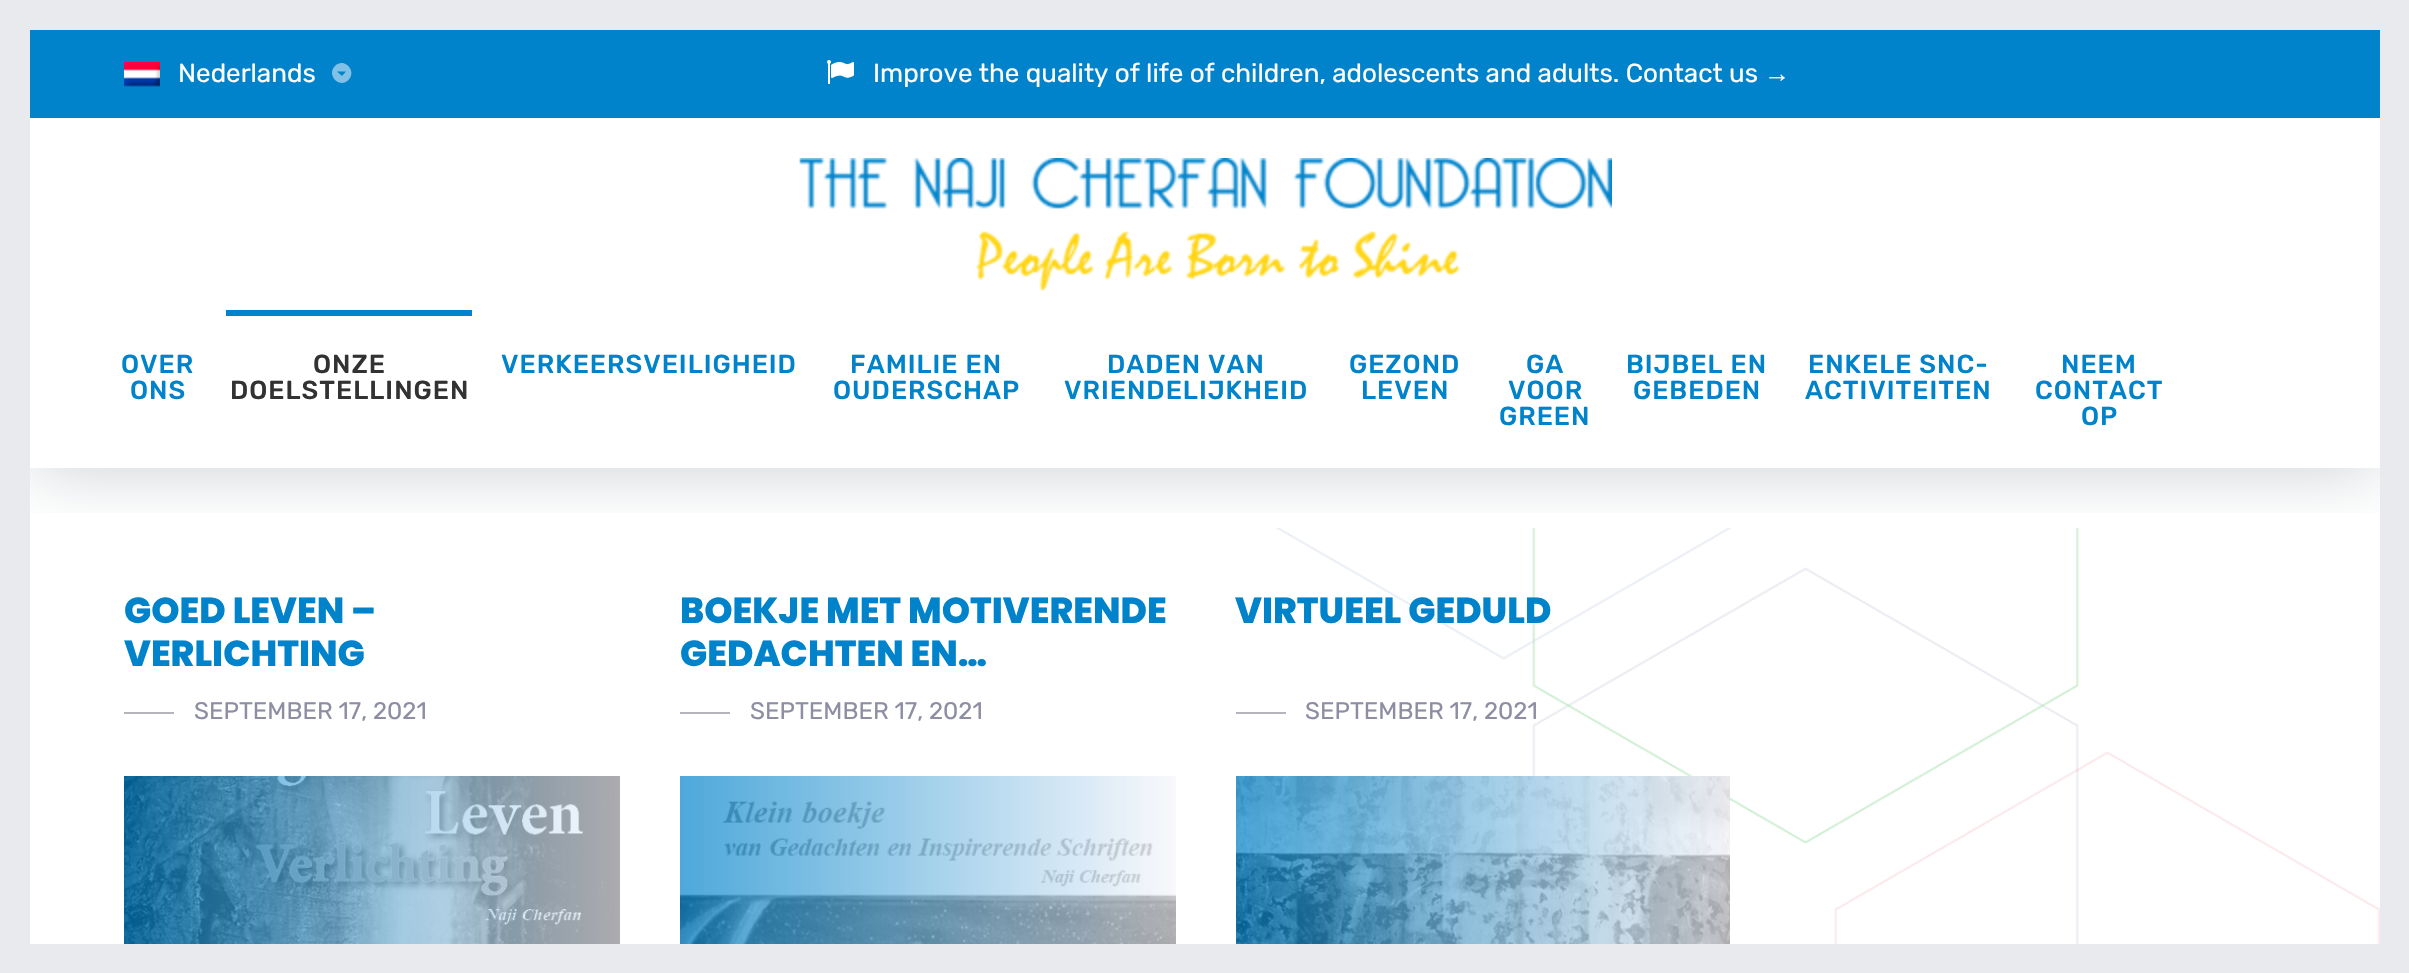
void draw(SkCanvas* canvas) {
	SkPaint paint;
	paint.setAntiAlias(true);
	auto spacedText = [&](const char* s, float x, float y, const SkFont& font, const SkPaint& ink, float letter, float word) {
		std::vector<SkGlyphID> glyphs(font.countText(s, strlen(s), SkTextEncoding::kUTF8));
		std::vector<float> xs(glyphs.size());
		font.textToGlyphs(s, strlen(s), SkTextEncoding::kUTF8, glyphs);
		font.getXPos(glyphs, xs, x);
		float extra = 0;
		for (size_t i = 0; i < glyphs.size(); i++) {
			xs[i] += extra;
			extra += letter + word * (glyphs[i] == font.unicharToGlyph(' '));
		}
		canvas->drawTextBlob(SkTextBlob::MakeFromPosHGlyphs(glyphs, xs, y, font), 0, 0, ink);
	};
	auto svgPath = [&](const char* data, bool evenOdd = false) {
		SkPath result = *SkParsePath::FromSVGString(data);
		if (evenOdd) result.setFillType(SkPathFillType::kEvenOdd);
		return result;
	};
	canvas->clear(0xffffffff);
	canvas->drawImageRect(SkImages::DeferredFromEncodedData(SkData::MakeFromFileName("img1.png")), SkRect::MakeXYWH(1230, 118, 1150, 826), SkSamplingOptions());
	paint.setColor(0xffffffff);
	canvas->drawRect(SkRect::MakeXYWH(1230, 468, 849, 60), paint);
	canvas->save();
	canvas->clipRect(SkRect::MakeXYWH(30, 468, 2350, 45));
	paint.setColor(0x33020620);
	paint.setMaskFilter(SkMaskFilter::MakeBlur(kNormal_SkBlurStyle, 35));
	canvas->drawRect(SkRect::MakeXYWH(30, 118, 2350, 350), paint);
	paint.setMaskFilter(nullptr);
	canvas->restore();
	paint.setColor(0xffe9eaee);
	canvas->drawRect(SkRect::MakeXYWH(0, 0, 30, 973), paint);
	canvas->drawRect(SkRect::MakeXYWH(30, 0, 2350, 30), paint);
	canvas->drawRect(SkRect::MakeXYWH(2380, 0, 29, 944), paint);
	canvas->drawRect(SkRect::MakeXYWH(30, 944, 2379, 29), paint);
	paint.setColor(0xff0083cb);
	canvas->drawRect(SkRect::MakeXYWH(30, 30, 2350, 88), paint);
	canvas->drawImageRect(SkImages::DeferredFromEncodedData(SkData::MakeFromFileName("img2.png")), SkRect::MakeXYWH(124, 62, 36, 25), SkSamplingOptions());
	SkFont f1(fontMgr->matchFamilyStyle("Rubik", SkFontStyle::Normal()), 26);
	f1.setSubpixel(true);
	paint.setColor(0xffffffff);
	canvas->drawString("Nederlands", 178, 82, f1, paint);
	paint.setColor(0xff80c1e5);
	canvas->drawPath(svgPath("M335 66C344 57 357.5 71 348.5 80C339.5 89 326 75 335 66ZM342 76L346 71.5H337Z"), paint);
	canvas->drawImageRect(SkImages::DeferredFromEncodedData(SkData::MakeFromFileName("img3.png")), SkRect::MakeXYWH(827, 60, 27, 24), SkSamplingOptions());
	paint.setColor(0xffffffff);
	canvas->drawString("Improve the quality of life of children, adolescents and adults. Contact us", 873, 82, f1, paint);
	SkFont f2(fontMgr->matchFamilyStyle("Liberation Serif", SkFontStyle::Normal()), 26);
	f2.setSubpixel(true);
	canvas->drawString("→", 1764, 82, f2, paint);
	paint.setColor(0xf2ffffff);
	canvas->drawRect(SkRect::MakeXYWH(1230, 118, 849, 350), paint);
	canvas->drawImageRect(SkImages::DeferredFromEncodedData(SkData::MakeFromFileName("img4.png")), SkRect::MakeXYWH(799, 158, 813, 133), SkSamplingOptions());
	SkFont f3(fontMgr->matchFamilyStyle("Rubik", SkFontStyle(500, SkFontStyle::kNormal_Width, SkFontStyle::kUpright_Slant)), 26);
	f3.setSubpixel(true);
	paint.setColor(0xff0083ca);
	spacedText("OVER", 121, 373, f3, paint, 1, 0);
	spacedText("ONS", 130, 399, f3, paint, 1, 0);
	canvas->drawRect(SkRect::MakeXYWH(226, 310, 246, 6), paint);
	paint.setColor(0xff323232);
	spacedText("ONZE", 313, 373, f3, paint, 1, 0);
	spacedText("DOELSTELLINGEN", 230, 399, f3, paint, 1, 0);
	paint.setColor(0xff0083ca);
	spacedText("VERKEERSVEILIGHEID", 501, 373, f3, paint, 1, 0);
	spacedText("FAMILIE EN", 850, 373, f3, paint, 1, 0);
	spacedText("OUDERSCHAP", 833, 399, f3, paint, 1, 0);
	spacedText("DADEN VAN", 1107, 373, f3, paint, 1, 0);
	spacedText("VRIENDELIJKHEID", 1064, 399, f3, paint, 1, 0);
	spacedText("GEZOND", 1349, 373, f3, paint, 1, 0);
	spacedText("LEVEN", 1361, 399, f3, paint, 1, 0);
	spacedText("GA", 1526, 373, f3, paint, 1, 0);
	spacedText("VOOR", 1508, 399, f3, paint, 1, 0);
	spacedText("GREEN", 1499, 425, f3, paint, 1, 0);
	spacedText("BIJBEL EN", 1626, 373, f3, paint, 1, 0);
	spacedText("GEBEDEN", 1633, 399, f3, paint, 1, 0);
	spacedText("ENKELE SNC-", 1808, 373, f3, paint, 1, 0);
	spacedText("ACTIVITEITEN", 1805, 399, f3, paint, 1, 0);
	spacedText("NEEM", 2061, 373, f3, paint, 1, 0);
	spacedText("CONTACT", 2035, 399, f3, paint, 1, 0);
	spacedText("OP", 2081, 425, f3, paint, 1, 0);
	SkFont f4(fontMgr->matchFamilyStyle("Poppins", SkFontStyle(800, SkFontStyle::kNormal_Width, SkFontStyle::kUpright_Slant)), 36);
	f4.setSubpixel(true);
	canvas->drawString("GOED LEVEN –", 124, 623, f4, paint);
	canvas->drawString("VERLICHTING", 124, 666, f4, paint);
	paint.setColor(0xffb3b4bc);
	canvas->drawRect(SkRect::MakeXYWH(124, 712, 50, 2), paint);
	SkFont f5(fontMgr->matchFamilyStyle("Rubik", SkFontStyle::Normal()), 24);
	f5.setSubpixel(true);
	paint.setColor(0xff8d8ea3);
	canvas->drawString("SEPTEMBER 17, 2021", 194, 719, f5, paint);
	{
		const SkColor colors[] = {0xff0083ca, 0xfff7f6fb};
		const float stops[] = {0, 1};
		const SkPoint ends[] = {{124, 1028}, {620, 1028}};
		paint.setShader(SkGradientShader::MakeLinear(ends, colors, stops, 2, SkTileMode::kClamp));
		paint.setAlpha(255);
	}
	canvas->drawRect(SkRect::MakeXYWH(124, 776, 496, 168), paint);
	canvas->drawImageRect(SkImages::DeferredFromEncodedData(SkData::MakeFromFileName("img5.png")), SkRect::MakeXYWH(124, 776, 496, 168), SkSamplingOptions());
	paint.setShader(nullptr);
	paint.setColor(0xff0083ca);
	canvas->drawString("BOEKJE MET MOTIVERENDE", 680, 623, f4, paint);
	canvas->drawString("GEDACHTEN EN…", 680, 666, f4, paint);
	paint.setColor(0xffb3b4bc);
	canvas->drawRect(SkRect::MakeXYWH(680, 712, 50, 2), paint);
	paint.setColor(0xff8d8ea3);
	canvas->drawString("SEPTEMBER 17, 2021", 750, 719, f5, paint);
	{
		const SkColor colors[] = {0xff0083ca, 0xfff7f6fb};
		const float stops[] = {0, 1};
		const SkPoint ends[] = {{680, 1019}, {1176, 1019}};
		paint.setShader(SkGradientShader::MakeLinear(ends, colors, stops, 2, SkTileMode::kClamp));
		paint.setAlpha(255);
	}
	canvas->drawRect(SkRect::MakeXYWH(680, 776, 496, 168), paint);
	canvas->drawImageRect(SkImages::DeferredFromEncodedData(SkData::MakeFromFileName("img6.png")), SkRect::MakeXYWH(680, 776, 496, 168), SkSamplingOptions());
	paint.setShader(nullptr);
	paint.setColor(0xff0083ca);
	canvas->drawString("VIRTUEEL GEDULD", 1235, 623, f4, paint);
	paint.setColor(0xffb3b4bc);
	canvas->drawRect(SkRect::MakeXYWH(1236, 712, 50, 2), paint);
	paint.setColor(0xff8d8ea3);
	canvas->drawString("SEPTEMBER 17, 2021", 1305, 719, f5, paint);
	{
		const SkColor colors[] = {0xff0083ca, 0xfff7f6fb};
		const float stops[] = {0, 1};
		const SkPoint ends[] = {{1236, 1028}, {1730, 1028}};
		paint.setShader(SkGradientShader::MakeLinear(ends, colors, stops, 2, SkTileMode::kClamp));
		paint.setAlpha(255);
	}
	canvas->drawRect(SkRect::MakeXYWH(1236, 776, 494, 168), paint);
	canvas->drawImageRect(SkImages::DeferredFromEncodedData(SkData::MakeFromFileName("img7.png")), SkRect::MakeXYWH(1236, 776, 494, 168), SkSamplingOptions());
}
